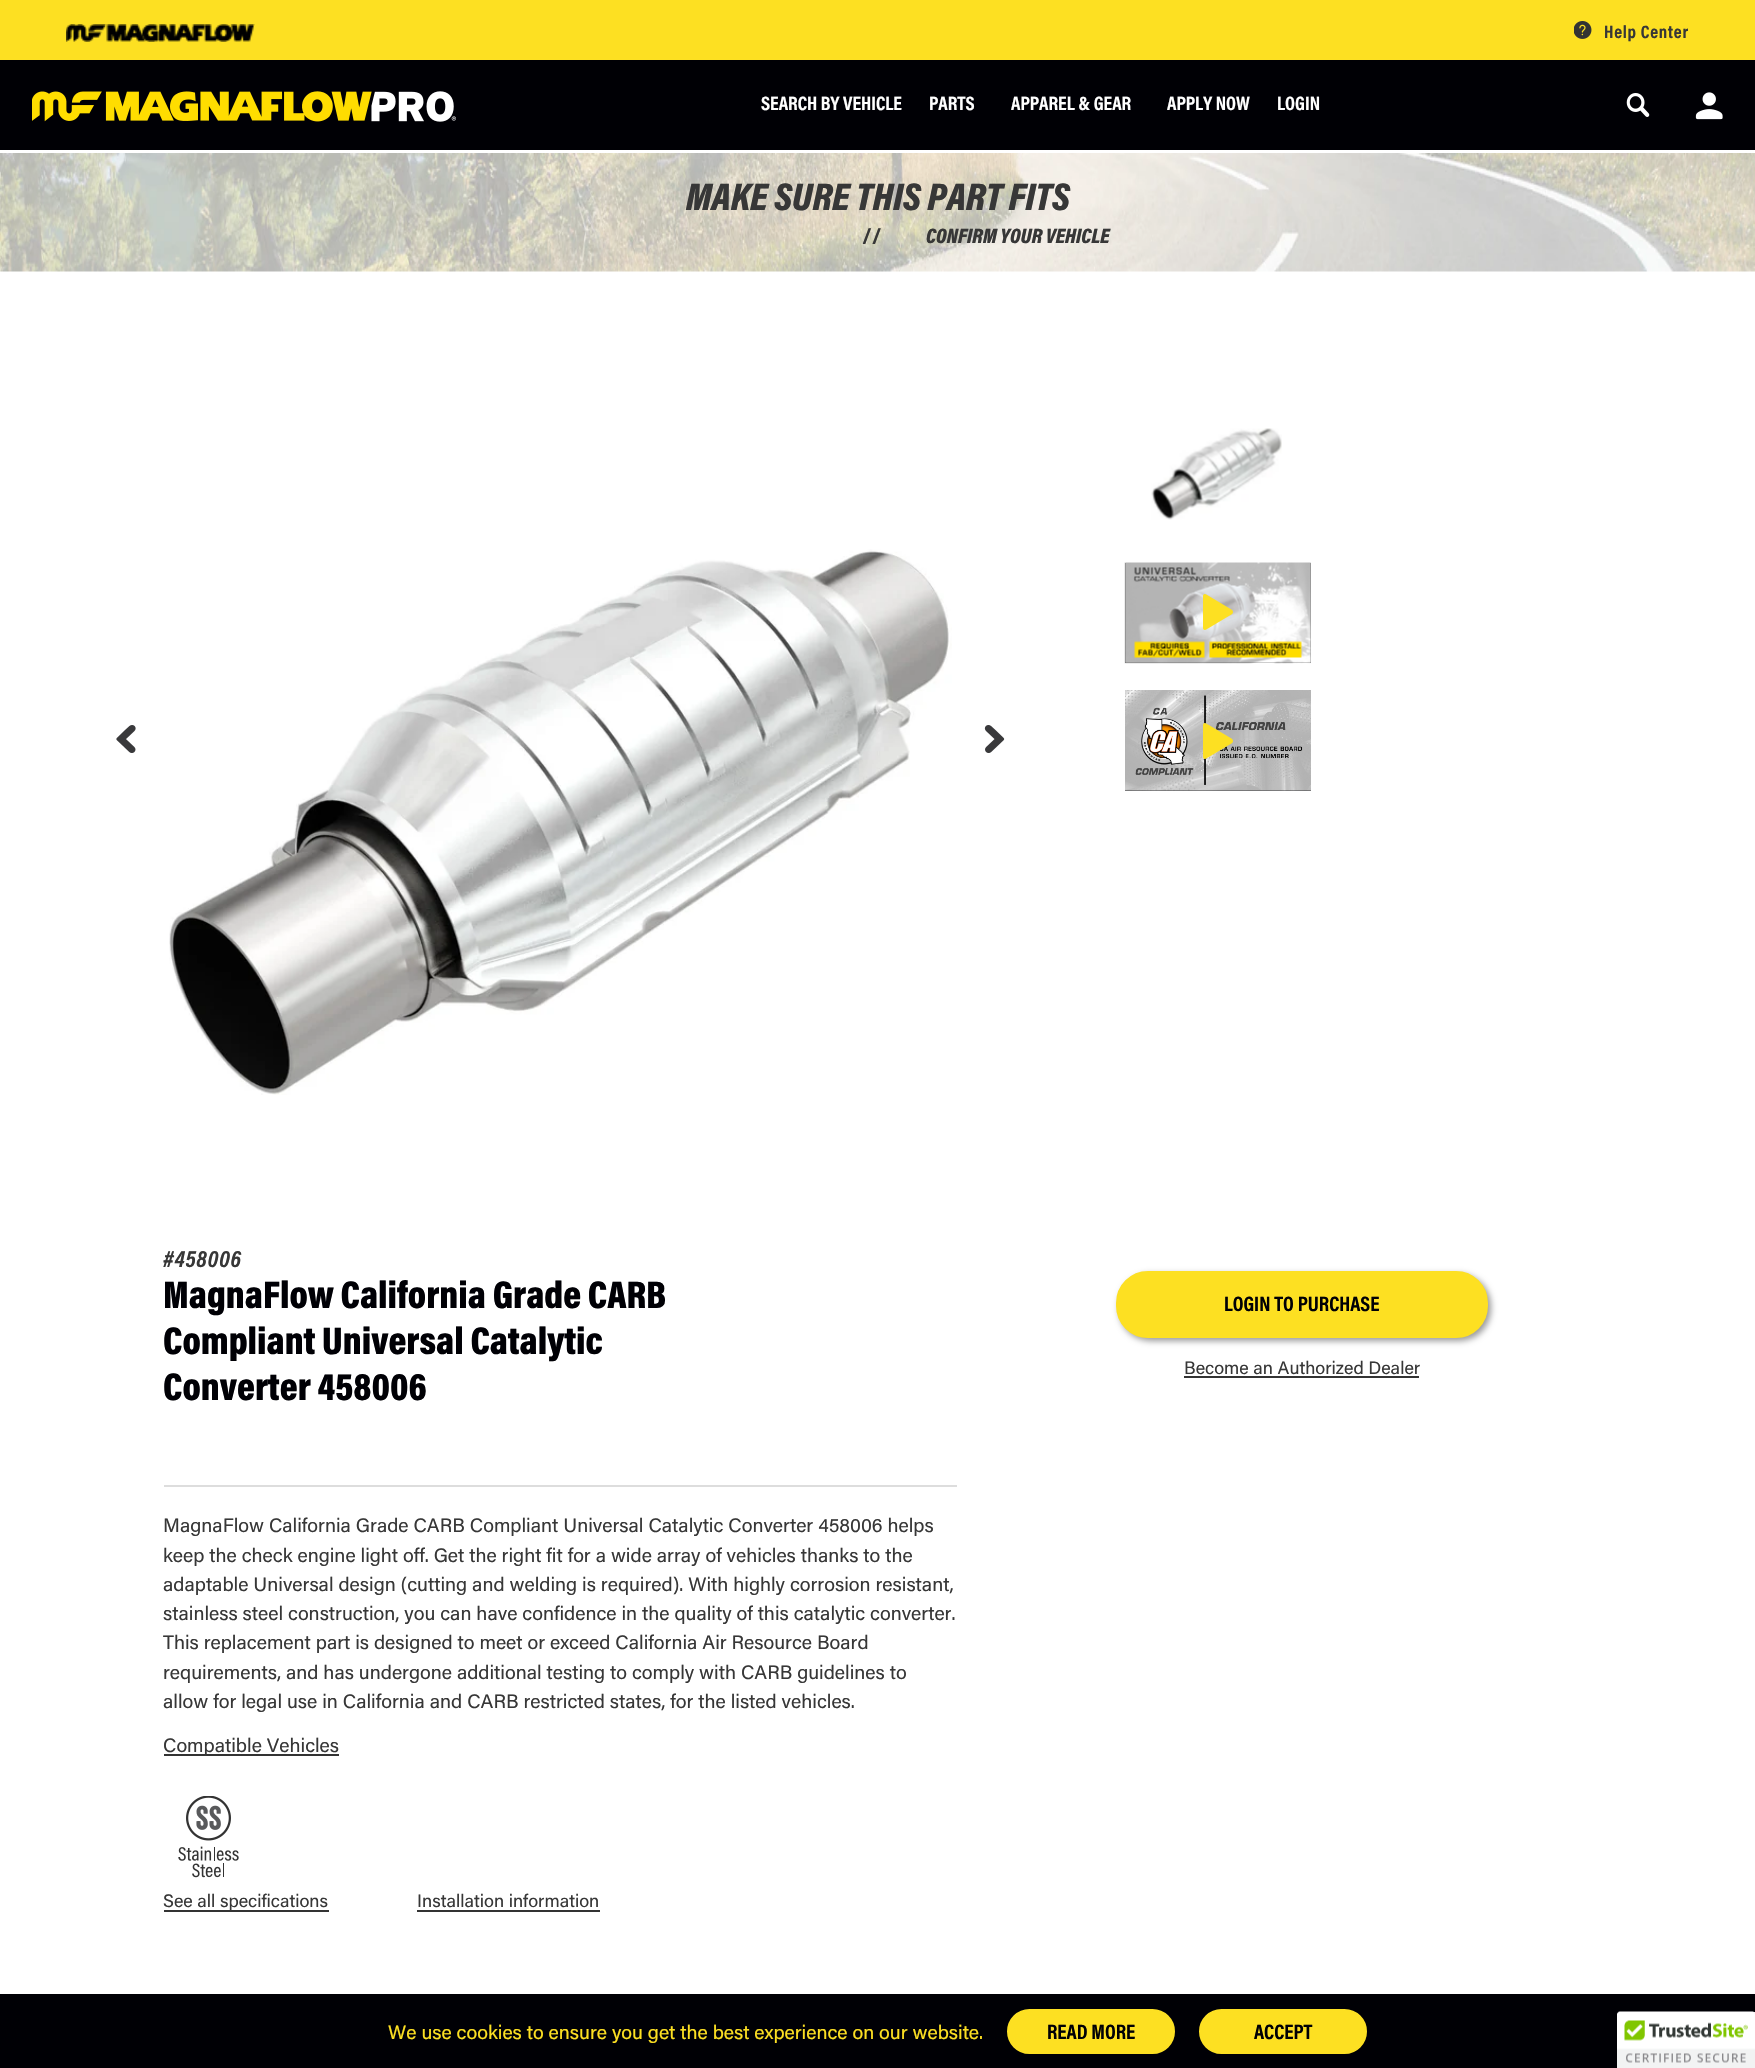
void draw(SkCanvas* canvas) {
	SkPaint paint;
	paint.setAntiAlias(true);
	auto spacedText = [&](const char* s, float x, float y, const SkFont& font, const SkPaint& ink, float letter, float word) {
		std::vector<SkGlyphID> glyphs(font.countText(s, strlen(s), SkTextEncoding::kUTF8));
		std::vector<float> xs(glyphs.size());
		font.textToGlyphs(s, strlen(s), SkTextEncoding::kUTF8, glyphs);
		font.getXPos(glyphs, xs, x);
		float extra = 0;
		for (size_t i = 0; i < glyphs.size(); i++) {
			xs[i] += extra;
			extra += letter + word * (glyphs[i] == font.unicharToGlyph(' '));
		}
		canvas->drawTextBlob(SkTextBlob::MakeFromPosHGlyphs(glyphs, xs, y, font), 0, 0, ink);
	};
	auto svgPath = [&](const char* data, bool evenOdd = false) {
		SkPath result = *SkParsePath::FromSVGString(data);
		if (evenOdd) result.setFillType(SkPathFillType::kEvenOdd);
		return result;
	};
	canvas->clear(0xffffffff);
	paint.setColor(0xff000005);
	canvas->drawRect(SkRect::MakeXYWH(0, 60, 1755, 90), paint);
	paint.setColor(0xfffde022);
	canvas->drawRect(SkRect::MakeXYWH(0, 0, 1755, 60), paint);
	canvas->drawImageRect(SkImages::DeferredFromEncodedData(SkData::MakeFromFileName("img1.png")), SkRect::MakeXYWH(66, 24, 189, 18), SkSamplingOptions());
	canvas->drawImageRect(SkImages::DeferredFromEncodedData(SkData::MakeFromFileName("img2.png")), SkRect::MakeXYWH(1574, 21, 18, 18), SkSamplingOptions());
	SkFont f1(fontMgr->matchFamilyStyle("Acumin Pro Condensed", SkFontStyle::Bold()), 18);
	f1.setSubpixel(true);
	paint.setColor(0xff373737);
	spacedText("Help Center", 1604, 38, f1, paint, 0.75, 0);
	canvas->drawImageRect(SkImages::DeferredFromEncodedData(SkData::MakeFromFileName("img3.png")), SkRect::MakeXYWH(32, 91, 424, 31), SkSamplingOptions());
	SkFont f2(fontMgr->matchFamilyStyle("Acumin Pro Condensed", SkFontStyle::Bold()), 19.5);
	f2.setSubpixel(true);
	paint.setColor(0xffffffff);
	canvas->drawString("SEARCH BY VEHICLE", 761, 110, f2, paint);
	canvas->drawString("PARTS", 929, 110, f2, paint);
	canvas->drawString("APPAREL & GEAR", 1011, 110, f2, paint);
	canvas->drawString("APPLY NOW", 1167, 110, f2, paint);
	canvas->drawString("LOGIN", 1277, 110, f2, paint);
	canvas->drawImageRect(SkImages::DeferredFromEncodedData(SkData::MakeFromFileName("img4.png")), SkRect::MakeXYWH(1626, 93, 24, 24), SkSamplingOptions());
	canvas->drawImageRect(SkImages::DeferredFromEncodedData(SkData::MakeFromFileName("img5.png")), SkRect::MakeXYWH(1695, 92, 28, 28), SkSamplingOptions());
	canvas->drawImageRect(SkImages::DeferredFromEncodedData(SkData::MakeFromFileName("img6.png")), SkRect::MakeXYWH(0, 153, 1755, 119), SkSamplingOptions());
	SkFont f3(fontMgr->matchFamilyStyle("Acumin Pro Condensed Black", SkFontStyle(900, SkFontStyle::kNormal_Width, SkFontStyle::kItalic_Slant)), 39);
	f3.setSubpixel(true);
	paint.setColor(0xff373737);
	canvas->drawString("MAKE SURE THIS PART FITS", 686, 210, f3, paint);
	SkFont f4(fontMgr->matchFamilyStyle("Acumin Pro", SkFontStyle::Bold()), 21);
	f4.setSubpixel(true);
	canvas->drawString("//", 862, 243, f4, paint);
	SkFont f5(fontMgr->matchFamilyStyle("Acumin Pro Condensed Black", SkFontStyle(900, SkFontStyle::kNormal_Width, SkFontStyle::kItalic_Slant)), 21);
	f5.setSubpixel(true);
	canvas->drawString("CONFIRM YOUR VEHICLE", 926, 243, f5, paint);
	canvas->drawImageRect(SkImages::DeferredFromEncodedData(SkData::MakeFromFileName("img7.png")), SkRect::MakeXYWH(116, 725, 20, 28), SkSamplingOptions());
	canvas->drawImageRect(SkImages::DeferredFromEncodedData(SkData::MakeFromFileName("img8.png")), SkRect::MakeXYWH(169, 549, 783, 546), SkSamplingOptions());
	canvas->drawImageRect(SkImages::DeferredFromEncodedData(SkData::MakeFromFileName("img9.png")), SkRect::MakeXYWH(984, 725, 21, 28), SkSamplingOptions());
	canvas->drawImageRect(SkImages::DeferredFromEncodedData(SkData::MakeFromFileName("img10.png")), SkRect::MakeXYWH(1151, 428, 131, 92), SkSamplingOptions());
	paint.setColor(0xff39393b);
	canvas->drawRect(SkRect::MakeXYWH(1125, 563, 186, 100), paint);
	canvas->drawImageRect(SkImages::DeferredFromEncodedData(SkData::MakeFromFileName("img11.png")), SkRect::MakeXYWH(1124, 562, 187, 102), SkSamplingOptions());
	canvas->drawImageRect(SkImages::DeferredFromEncodedData(SkData::MakeFromFileName("img12.png")), SkRect::MakeXYWH(1203, 594, 30, 36), SkSamplingOptions());
	canvas->drawRect(SkRect::MakeXYWH(1125, 790, 186, 1), paint);
	canvas->drawImageRect(SkImages::DeferredFromEncodedData(SkData::MakeFromFileName("img13.png")), SkRect::MakeXYWH(1125, 690, 186, 101), SkSamplingOptions());
	canvas->drawImageRect(SkImages::DeferredFromEncodedData(SkData::MakeFromFileName("img14.png")), SkRect::MakeXYWH(1203, 723, 30, 36), SkSamplingOptions());
	SkFont f6(fontMgr->matchFamilyStyle("Acumin Pro Condensed", SkFontStyle::BoldItalic()), 24);
	f6.setSubpixel(true);
	paint.setColor(0xff373737);
	spacedText("#458006", 163, 1267, f6, paint, 0.5, 0);
	SkFont f7(fontMgr->matchFamilyStyle("Acumin Pro Condensed Black", SkFontStyle(900, SkFontStyle::kNormal_Width, SkFontStyle::kUpright_Slant)), 39);
	f7.setSubpixel(true);
	paint.setColor(0xff000005);
	canvas->drawString("MagnaFlow California Grade CARB", 163, 1308, f7, paint);
	canvas->drawString("Compliant Universal Catalytic", 163, 1354, f7, paint);
	canvas->drawString("Converter 458006", 163, 1400, f7, paint);
	paint.setColor(0xffdddddd);
	canvas->drawRect(SkRect::MakeXYWH(164, 1485, 793, 2), paint);
	SkFont f8(fontMgr->matchFamilyStyle("Acumin Pro", SkFontStyle::Normal()), 19.5);
	f8.setSubpixel(true);
	paint.setColor(0xff373737);
	canvas->drawString("MagnaFlow California Grade CARB Compliant Universal Catalytic Converter 458006 helps", 163, 1532, f8, paint);
	canvas->drawString("keep the check engine light off. Get the right fit for a wide array of vehicles thanks to the", 163, 1562, f8, paint);
	canvas->drawString("adaptable Universal design (cutting and welding is required). With highly corrosion resistant,", 163, 1591, f8, paint);
	canvas->drawString("stainless steel construction, you can have confidence in the quality of this catalytic converter.", 163, 1620, f8, paint);
	canvas->drawString("This replacement part is designed to meet or exceed California Air Resource Board", 163, 1649, f8, paint);
	canvas->drawString("requirements, and has undergone additional testing to comply with CARB guidelines to", 163, 1679, f8, paint);
	canvas->drawString("allow for legal use in California and CARB restricted states, for the listed vehicles.", 163, 1708, f8, paint);
	paint.setColor(0xff333333);
	canvas->drawRect(SkRect::MakeXYWH(164, 1754, 175, 2), paint);
	paint.setColor(0xff373737);
	canvas->drawString("Compatible Vehicles", 163, 1752, f8, paint);
	canvas->drawImageRect(SkImages::DeferredFromEncodedData(SkData::MakeFromFileName("img15.png")), SkRect::MakeXYWH(178, 1796, 61, 82), SkSamplingOptions());
	paint.setColor(0x66000000);
	paint.setMaskFilter(SkMaskFilter::MakeBlur(kNormal_SkBlurStyle, 3));
	canvas->drawRoundRect(SkRect::MakeXYWH(1119, 1274, 372, 67), 32, 32, paint);
	paint.setMaskFilter(nullptr);
	paint.setColor(0xfffde022);
	canvas->drawRoundRect(SkRect::MakeXYWH(1117, 1272, 370, 65), 31, 31, paint);
	paint.setStroke(true);
	paint.setStrokeWidth(2);
	canvas->drawRoundRect(SkRect::MakeXYWH(1117, 1272, 370, 65), 31, 31, paint);
	SkFont f9(fontMgr->matchFamilyStyle("Acumin Pro Condensed", SkFontStyle::Bold()), 21);
	f9.setSubpixel(true);
	paint.setStroke(false);
	paint.setColor(0xff000005);
	canvas->drawString("LOGIN TO PURCHASE", 1224, 1311, f9, paint);
	SkFont f10(fontMgr->matchFamilyStyle("Acumin Pro", SkFontStyle::Normal()), 18);
	f10.setSubpixel(true);
	paint.setColor(0xff373737);
	canvas->drawString("Become an Authorized Dealer", 1184, 1374, f10, paint);
	paint.setColor(0xff333333);
	canvas->drawRect(SkRect::MakeXYWH(1184, 1376, 235, 2), paint);
	canvas->drawRect(SkRect::MakeXYWH(164, 1910, 165, 2), paint);
	paint.setColor(0xff373737);
	canvas->drawString("See all specifications", 163, 1907, f10, paint);
	canvas->drawString("Installation information", 417, 1907, f10, paint);
	paint.setColor(0xff333333);
	canvas->drawRect(SkRect::MakeXYWH(417, 1910, 183, 2), paint);
	paint.setColor(0xff000005);
	canvas->drawRect(SkRect::MakeXYWH(0, 1994, 1755, 74), paint);
	paint.setColor(0xfffde022);
	canvas->drawString("We use cookies to ensure you get the best experience on our website.", 388, 2039, f8, paint);
	canvas->drawRoundRect(SkRect::MakeXYWH(1008, 2010, 166, 43), 21.5, 21.5, paint);
	paint.setStroke(true);
	canvas->drawRoundRect(SkRect::MakeXYWH(1008, 2010, 166, 43), 21.5, 21.5, paint);
	paint.setStroke(false);
	paint.setColor(0xff000005);
	canvas->drawString("READ MORE", 1047, 2039, f9, paint);
	paint.setColor(0xfffde022);
	canvas->drawRoundRect(SkRect::MakeXYWH(1200, 2010, 166, 43), 21.5, 21.5, paint);
	paint.setStroke(true);
	canvas->drawRoundRect(SkRect::MakeXYWH(1200, 2010, 166, 43), 21.5, 21.5, paint);
	paint.setStroke(false);
	paint.setColor(0xff000005);
	canvas->drawString("ACCEPT", 1254, 2039, f9, paint);
	paint.setColor(0xffffffff);
	canvas->drawPath(svgPath("M1620 2012H1755V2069H1617V2015C1617 2013.5 1618.5 2012 1620 2012Z"), paint);
	canvas->drawImageRect(SkImages::DeferredFromEncodedData(SkData::MakeFromFileName("img16.png")), SkRect::MakeXYWH(1617, 2011, 138, 57), SkSamplingOptions());
}
